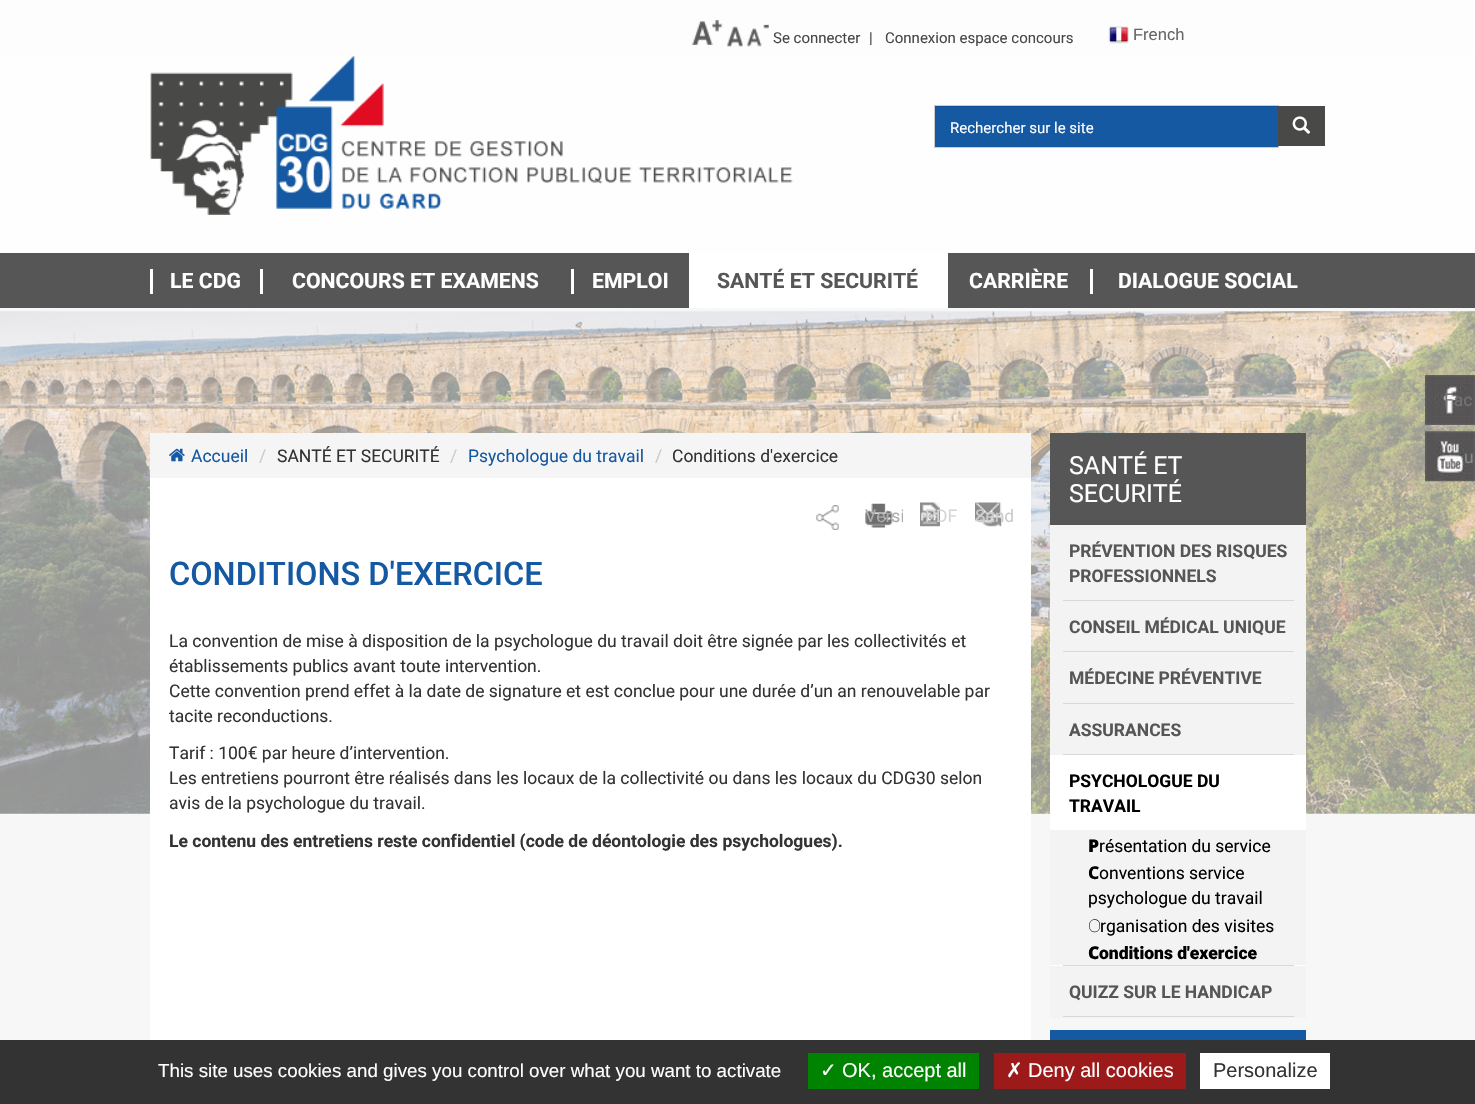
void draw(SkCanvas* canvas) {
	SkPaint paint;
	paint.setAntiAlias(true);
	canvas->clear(0xfff7f7f7);
	paint.setColor(0xfffdfdfd);
	canvas->drawRect(SkRect::MakeXYWH(0, 0, 1475, 55), paint);
	canvas->drawImageRect(SkImages::DeferredFromEncodedData(SkData::MakeFromFileName("img1.png")), SkRect::MakeXYWH(692, 20, 31, 25), SkSamplingOptions());
	canvas->drawImageRect(SkImages::DeferredFromEncodedData(SkData::MakeFromFileName("img2.png")), SkRect::MakeXYWH(726, 26, 17, 21), SkSamplingOptions());
	canvas->drawImageRect(SkImages::DeferredFromEncodedData(SkData::MakeFromFileName("img3.png")), SkRect::MakeXYWH(746, 24, 23, 23), SkSamplingOptions());
	SkFont f1(fontMgr->matchFamilyStyle("Roboto", SkFontStyle::Normal()), 15);
	f1.setSubpixel(true);
	paint.setColor(0xff474747);
	canvas->drawString("Se connecter", 773, 43, f1, paint);
	canvas->drawString("|", 869, 43, f1, paint);
	canvas->drawString("Connexion espace concours", 885, 43, f1, paint);
	canvas->drawImageRect(SkImages::DeferredFromEncodedData(SkData::MakeFromFileName("img4.png")), SkRect::MakeXYWH(1108, 26, 21, 18), SkSamplingOptions());
	SkFont f2(fontMgr->matchFamilyStyle("Liberation Sans", SkFontStyle::Normal()), 16.5);
	f2.setSubpixel(true);
	paint.setColor(0xff666666);
	canvas->drawString("French", 1133, 40, f2, paint);
	paint.setColor(0xfffefefe);
	canvas->drawRect(SkRect::MakeXYWH(0, 55, 1475, 198), paint);
	canvas->drawImageRect(SkImages::DeferredFromEncodedData(SkData::MakeFromFileName("img5.png")), SkRect::MakeXYWH(150, 55, 643, 160), SkSamplingOptions());
	paint.setColor(0xff1559a2);
	canvas->drawRect(SkRect::MakeXYWH(935, 107, 343, 40), paint);
	paint.setColor(0xff135296);
	canvas->drawRect(SkRect::MakeXYWH(935, 106, 343, 1), paint);
	paint.setStroke(true);
	paint.setStrokeWidth(1);
	paint.setColor(0xffcccccc);
	canvas->drawRect(SkRect::MakeXYWH(934.5, 105.5, 344, 42), paint);
	paint.setStroke(false);
	paint.setColor(0xffffffff);
	canvas->drawString("Rechercher sur le site", 950, 133, f1, paint);
	paint.setColor(0xff494948);
	canvas->drawRect(SkRect::MakeXYWH(1278, 106, 47, 40), paint);
	canvas->drawImageRect(SkImages::DeferredFromEncodedData(SkData::MakeFromFileName("img6.png")), SkRect::MakeXYWH(1292, 116, 19, 18), SkSamplingOptions());
	paint.setColor(0xff575656);
	canvas->drawRect(SkRect::MakeXYWH(0, 253, 1475, 55), paint);
	paint.setColor(0xffffffff);
	canvas->drawRect(SkRect::MakeXYWH(150, 269, 3, 25), paint);
	SkFont f3(fontMgr->matchFamilyStyle("Roboto", SkFontStyle::Bold()), 21.25);
	f3.setSubpixel(true);
	canvas->drawString("LE CDG", 170, 288, f3, paint);
	canvas->drawRect(SkRect::MakeXYWH(260, 269, 3, 25), paint);
	canvas->drawString("CONCOURS ET EXAMENS", 292, 288, f3, paint);
	canvas->drawRect(SkRect::MakeXYWH(571, 269, 3, 25), paint);
	canvas->drawString("EMPLOI", 592, 288, f3, paint);
	canvas->drawRect(SkRect::MakeXYWH(689, 253, 259, 55), paint);
	paint.setColor(0xff575656);
	canvas->drawString("SANTÉ ET SECURITÉ", 717, 288, f3, paint);
	paint.setColor(0xffffffff);
	canvas->drawString("CARRIÈRE", 969, 288, f3, paint);
	canvas->drawRect(SkRect::MakeXYWH(1090, 269, 3, 25), paint);
	canvas->drawString("DIALOGUE SOCIAL", 1118, 288, f3, paint);
	canvas->drawImageRect(SkImages::DeferredFromEncodedData(SkData::MakeFromFileName("img7.png")), SkRect::MakeXYWH(0, 311, 1475, 503), SkSamplingOptions());
	canvas->drawRect(SkRect::MakeXYWH(150, 478, 881, 562), paint);
	canvas->drawImageRect(SkImages::DeferredFromEncodedData(SkData::MakeFromFileName("img8.png")), SkRect::MakeXYWH(1425, 375, 50, 50), SkSamplingOptions());
	SkFont f4(fontMgr->matchFamilyStyle("Roboto", SkFontStyle::Normal()), 17.5);
	f4.setSubpixel(true);
	paint.setColor(0xff757374);
	canvas->drawString("Fac", 1444, 406, f4, paint);
	canvas->drawImageRect(SkImages::DeferredFromEncodedData(SkData::MakeFromFileName("img9.png")), SkRect::MakeXYWH(1425, 431, 50, 51), SkSamplingOptions());
	paint.setColor(0xff888888);
	canvas->drawString("u", 1464, 463, f4, paint);
	paint.setColor(0xff333333);
	canvas->drawString("La convention de mise à disposition de la psychologue du travail doit être signée par les collectivités et", 169, 647, f4, paint);
	canvas->drawString("établissements publics avant toute intervention.", 169, 672, f4, paint);
	canvas->drawString("Cette convention prend effet à la date de signature et est conclue pour une durée d’un an renouvelable par", 169, 697, f4, paint);
	canvas->drawString("tacite reconductions.", 169, 722, f4, paint);
	canvas->drawString("Tarif : 100€ par heure d’intervention.", 169, 759, f4, paint);
	canvas->drawString("Les entretiens pourront être réalisés dans les locaux de la collectivité ou dans les locaux du CDG30 selon", 169, 784, f4, paint);
	canvas->drawString("avis de la psychologue du travail.", 169, 809, f4, paint);
	SkFont f5(fontMgr->matchFamilyStyle("Roboto", SkFontStyle::Bold()), 17.5);
	f5.setSubpixel(true);
	canvas->drawString("Le contenu des entretiens reste confidentiel (code de déontologie des psychologues).", 169, 847, f5, paint);
	paint.setColor(0xfff5f5f5);
	canvas->drawRect(SkRect::MakeXYWH(150, 433, 881, 45), paint);
	canvas->drawImageRect(SkImages::DeferredFromEncodedData(SkData::MakeFromFileName("img10.png")), SkRect::MakeXYWH(169, 448, 16, 14), SkSamplingOptions());
	paint.setColor(0xff1559a2);
	canvas->drawString("Accueil", 191, 462, f4, paint);
	paint.setColor(0xffcccccc);
	canvas->drawString("/", 259, 462, f4, paint);
	paint.setColor(0xff333333);
	canvas->drawString("SANTÉ ET SECURITÉ", 277, 462, f4, paint);
	paint.setColor(0xffcccccc);
	canvas->drawString("/", 450, 462, f4, paint);
	paint.setColor(0xff1559a2);
	canvas->drawString("Psychologue du travail", 468, 462, f4, paint);
	paint.setColor(0xffcccccc);
	canvas->drawString("/", 655, 462, f4, paint);
	paint.setColor(0xff333333);
	canvas->drawString("Conditions d'exercice", 672, 462, f4, paint);
	canvas->drawImageRect(SkImages::DeferredFromEncodedData(SkData::MakeFromFileName("img11.png")), SkRect::MakeXYWH(816, 505, 23, 25), SkSamplingOptions());
	canvas->drawImageRect(SkImages::DeferredFromEncodedData(SkData::MakeFromFileName("img12.png")), SkRect::MakeXYWH(865, 503, 28, 25), SkSamplingOptions());
	canvas->save();
	canvas->clipRect(SkRect::MakeXYWH(865, 503, 38, 37));
	paint.setColor(0xffacacac);
	canvas->drawString("Versi", 865, 522, f4, paint);
	canvas->restore();
	canvas->drawImageRect(SkImages::DeferredFromEncodedData(SkData::MakeFromFileName("img13.png")), SkRect::MakeXYWH(920, 502, 20, 25), SkSamplingOptions());
	paint.setColor(0xffd6d5d5);
	canvas->drawString("PDF", 925, 522, f4, paint);
	canvas->drawImageRect(SkImages::DeferredFromEncodedData(SkData::MakeFromFileName("img14.png")), SkRect::MakeXYWH(975, 502, 27, 25), SkSamplingOptions());
	paint.setColor(0xffcccccc);
	canvas->drawString("Send", 975, 522, f4, paint);
	SkFont f6(fontMgr->matchFamilyStyle("Roboto", SkFontStyle(500, SkFontStyle::kNormal_Width, SkFontStyle::kUpright_Slant)), 32.5);
	f6.setSubpixel(true);
	paint.setColor(0xff1559a2);
	canvas->drawString("CONDITIONS D'EXERCICE", 169, 585, f6, paint);
	paint.setColor(0xff575656);
	canvas->drawRect(SkRect::MakeXYWH(1050, 433, 256, 92), paint);
	SkFont f7(fontMgr->matchFamilyStyle("Roboto", SkFontStyle::Normal()), 25);
	f7.setSubpixel(true);
	paint.setColor(0xffffffff);
	canvas->drawString("SANTÉ ET", 1069, 474, f7, paint);
	canvas->drawString("SECURITÉ", 1069, 502, f7, paint);
	paint.setColor(0xfff3f3f3);
	canvas->drawRect(SkRect::MakeXYWH(1050, 525, 256, 230), paint);
	paint.setColor(0xff575656);
	canvas->drawString("PRÉVENTION DES RISQUES", 1069, 557, f5, paint);
	canvas->drawString("PROFESSIONNELS", 1069, 582, f5, paint);
	paint.setColor(0xffd8d8d8);
	canvas->drawRect(SkRect::MakeXYWH(1063, 600, 231, 1), paint);
	paint.setColor(0xff575656);
	canvas->drawString("CONSEIL MÉDICAL UNIQUE", 1069, 633, f5, paint);
	paint.setColor(0xffd8d8d8);
	canvas->drawRect(SkRect::MakeXYWH(1063, 651, 231, 1), paint);
	paint.setColor(0xff575656);
	canvas->drawString("MÉDECINE PRÉVENTIVE", 1069, 684, f5, paint);
	paint.setColor(0xffd8d8d8);
	canvas->drawRect(SkRect::MakeXYWH(1063, 703, 231, 1), paint);
	paint.setColor(0xff575656);
	canvas->drawString("ASSURANCES", 1069, 736, f5, paint);
	paint.setColor(0xffd8d8d8);
	canvas->drawRect(SkRect::MakeXYWH(1063, 754, 231, 1), paint);
	paint.setColor(0xffffffff);
	canvas->drawRect(SkRect::MakeXYWH(1050, 755, 256, 211), paint);
	paint.setColor(0xff000000);
	canvas->drawString("PSYCHOLOGUE DU", 1069, 787, f5, paint);
	canvas->drawString("TRAVAIL", 1069, 812, f5, paint);
	paint.setColor(0xfff3f3f3);
	canvas->drawRect(SkRect::MakeXYWH(1050, 830, 256, 135), paint);
	SkFont f8(fontMgr->matchFamilyStyle("Noto Sans", SkFontStyle(900, SkFontStyle::kNormal_Width, SkFontStyle::kUpright_Slant)), 17.5);
	f8.setSubpixel(true);
	paint.setColor(0xff000000);
	canvas->drawString("P", 1088, 852, f8, paint);
	canvas->drawString("résentation du service", 1099, 852, f4, paint);
	SkFont f9(fontMgr->matchFamilyStyle("Noto Sans", SkFontStyle(800, SkFontStyle::kNormal_Width, SkFontStyle::kUpright_Slant)), 17.5);
	f9.setSubpixel(true);
	canvas->drawString("C", 1088, 879, f9, paint);
	canvas->drawString("onventions service", 1099, 879, f4, paint);
	canvas->drawString("psychologue du travail", 1088, 904, f4, paint);
	SkFont f10(fontMgr->matchFamilyStyle("Noto Sans", SkFontStyle(100, SkFontStyle::kNormal_Width, SkFontStyle::kUpright_Slant)), 17.5);
	f10.setSubpixel(true);
	canvas->drawString("O", 1088, 932, f10, paint);
	canvas->drawString("rganisation des visites", 1100, 932, f4, paint);
	canvas->drawString("C", 1088, 959, f8, paint);
	SkFont f11(fontMgr->matchFamilyStyle("Roboto", SkFontStyle(900, SkFontStyle::kNormal_Width, SkFontStyle::kUpright_Slant)), 17.5);
	f11.setSubpixel(true);
	canvas->drawString("onditions d'exercice", 1099, 959, f11, paint);
	paint.setColor(0xffd8d8d8);
	canvas->drawRect(SkRect::MakeXYWH(1063, 965, 231, 1), paint);
	paint.setColor(0xfff3f3f3);
	canvas->drawRect(SkRect::MakeXYWH(1050, 966, 256, 52), paint);
	paint.setColor(0xff575656);
	canvas->drawString("QUIZZ SUR LE HANDICAP", 1069, 998, f5, paint);
	paint.setColor(0xffd8d8d8);
	canvas->drawRect(SkRect::MakeXYWH(1063, 1016, 231, 1), paint);
	paint.setColor(0xff1559a2);
	canvas->drawRect(SkRect::MakeXYWH(1050, 1030, 256, 10), paint);
	paint.setColor(0xff333333);
	canvas->drawRect(SkRect::MakeXYWH(0, 1040, 1475, 64), paint);
	SkFont f12(fontMgr->matchFamilyStyle("Liberation Sans", SkFontStyle::Normal()), 18.75);
	f12.setSubpixel(true);
	paint.setColor(0xffffffff);
	canvas->drawString("This site uses cookies and gives you control over what you want to activate", 158, 1077, f12, paint);
	paint.setColor(0xff008300);
	canvas->drawRect(SkRect::MakeXYWH(808, 1053, 171, 36), paint);
	SkFont f13(fontMgr->matchFamilyStyle("DejaVu Sans", SkFontStyle::Normal()), 20);
	f13.setSubpixel(true);
	paint.setColor(0xffffffff);
	canvas->drawString("✓", 820, 1077, f13, paint);
	SkFont f14(fontMgr->matchFamilyStyle("Liberation Sans", SkFontStyle::Normal()), 20);
	f14.setSubpixel(true);
	canvas->drawString("OK, accept all", 842, 1077, f14, paint);
	paint.setColor(0xff9c1a1a);
	canvas->drawRect(SkRect::MakeXYWH(994, 1053, 192, 36), paint);
	paint.setColor(0xffffffff);
	canvas->drawString("✗", 1006, 1077, f13, paint);
	canvas->drawString("Deny all cookies", 1028, 1077, f14, paint);
	canvas->drawRect(SkRect::MakeXYWH(1200, 1053, 130, 36), paint);
	paint.setColor(0xff333333);
	canvas->drawString("Personalize", 1213, 1077, f14, paint);
}
